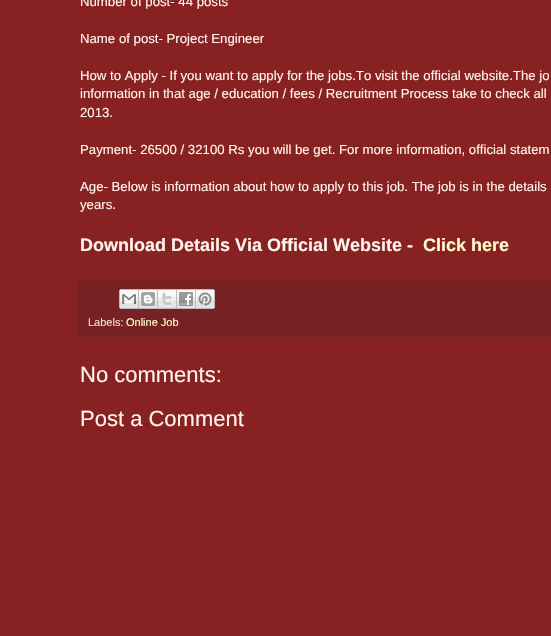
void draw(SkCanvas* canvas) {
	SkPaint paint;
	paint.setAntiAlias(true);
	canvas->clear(0xff882222);
	SkFont f1(fontMgr->matchFamilyStyle("Liberation Sans", SkFontStyle::Normal()), 13.2);
	f1.setSubpixel(true);
	paint.setColor(0xfffff5ee);
	canvas->drawString("Number of post- 44 posts", 80, 6, f1, paint);
	canvas->drawString("Name of post- Project Engineer", 80, 43, f1, paint);
	canvas->drawString("How to Apply - If you want to apply for the jobs.To visit the official website.The jo", 80, 80, f1, paint);
	canvas->drawString("information in that age / education / fees / Recruitment Process take to check all", 80, 98, f1, paint);
	canvas->drawString("2013.", 80, 117, f1, paint);
	canvas->drawString("Payment- 26500 / 32100 Rs you will be get. For more information, official statem", 80, 154, f1, paint);
	canvas->drawString("Age- Below is information about how to apply to this job. The job is in the details", 80, 191, f1, paint);
	canvas->drawString("years.", 80, 209, f1, paint);
	SkFont f2(fontMgr->matchFamilyStyle("Liberation Sans", SkFontStyle::Bold()), 18);
	f2.setSubpixel(true);
	canvas->drawString("Download Details Via Official Website -", 80, 251, f2, paint);
	paint.setColor(0xffffffcc);
	canvas->drawString("Click here", 423, 251, f2, paint);
	paint.setColor(0xff772222);
	canvas->drawRect(SkRect::MakeXYWH(78, 279, 473, 58), paint);
	canvas->drawImageRect(SkImages::DeferredFromEncodedData(SkData::MakeFromFileName("img1.png")), SkRect::MakeXYWH(119, 289, 20, 20), SkSamplingOptions());
	canvas->drawImageRect(SkImages::DeferredFromEncodedData(SkData::MakeFromFileName("img2.png")), SkRect::MakeXYWH(139, 289, 19, 20), SkSamplingOptions());
	canvas->drawImageRect(SkImages::DeferredFromEncodedData(SkData::MakeFromFileName("img3.png")), SkRect::MakeXYWH(158, 289, 19, 20), SkSamplingOptions());
	canvas->drawImageRect(SkImages::DeferredFromEncodedData(SkData::MakeFromFileName("img4.png")), SkRect::MakeXYWH(177, 289, 19, 20), SkSamplingOptions());
	canvas->drawImageRect(SkImages::DeferredFromEncodedData(SkData::MakeFromFileName("img5.png")), SkRect::MakeXYWH(196, 289, 19, 20), SkSamplingOptions());
	SkFont f3(fontMgr->matchFamilyStyle("Liberation Sans", SkFontStyle::Normal()), 11);
	f3.setSubpixel(true);
	paint.setColor(0xffeeddcc);
	canvas->drawString("Labels:", 88, 326, f3, paint);
	paint.setColor(0xffffffcc);
	canvas->drawString("Online Job", 126, 326, f3, paint);
	SkFont f4(fontMgr->matchFamilyStyle("Liberation Sans", SkFontStyle::Normal()), 22);
	f4.setSubpixel(true);
	paint.setColor(0xfffff5ee);
	canvas->drawString("No comments:", 80, 382, f4, paint);
	canvas->drawString("Post a Comment", 80, 426, f4, paint);
}
